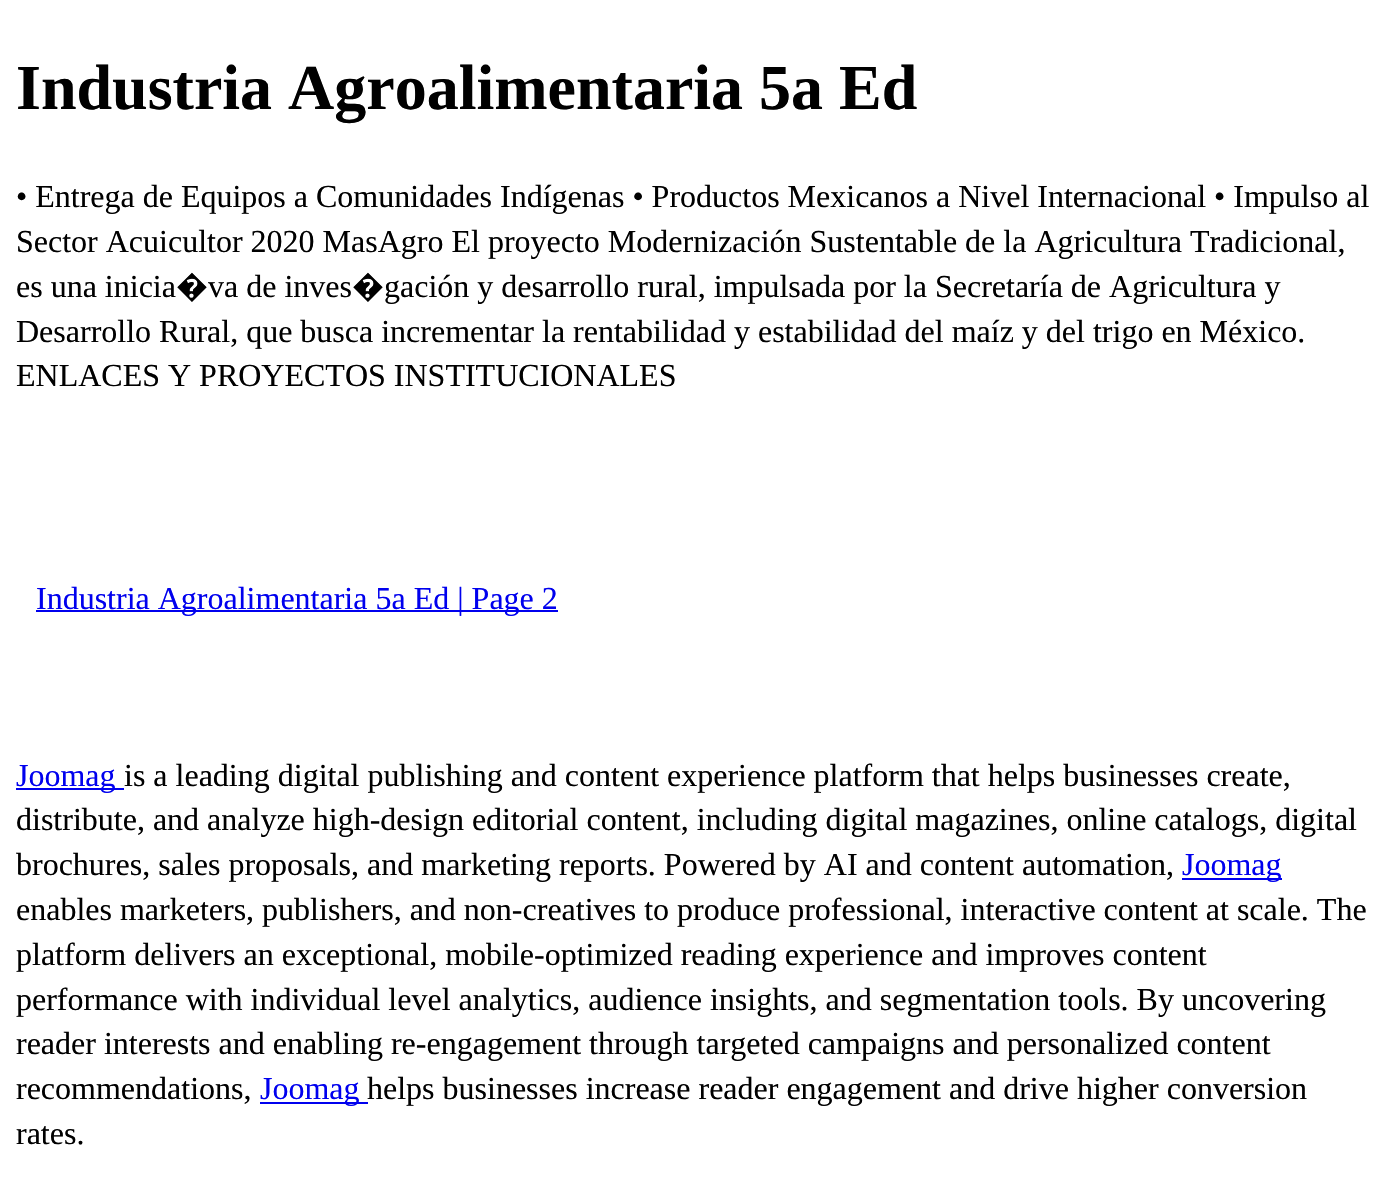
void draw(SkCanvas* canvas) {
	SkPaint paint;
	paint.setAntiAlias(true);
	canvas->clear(0xffffffff);
	SkFont f1(fontMgr->matchFamilyStyle("Liberation Serif", SkFontStyle::Bold()), 64);
	f1.setSubpixel(true);
	paint.setColor(0xff000000);
	canvas->drawString("Industria Agroalimentaria 5a Ed", 16, 109, f1, paint);
	SkFont f2(fontMgr->matchFamilyStyle("Liberation Serif", SkFontStyle::Normal()), 32);
	f2.setSubpixel(true);
	canvas->drawString("• Entrega de Equipos a Comunidades Indígenas • Productos Mexicanos a Nivel Internacional • Impulso al", 16, 207, f2, paint);
	canvas->drawString("Sector Acuicultor 2020 MasAgro El proyecto Modernización Sustentable de la Agricultura Tradicional,", 16, 252, f2, paint);
	canvas->drawString("es una inicia", 16, 297, f2, paint);
	SkFont f3(fontMgr->matchFamilyStyle("Noto Sans", SkFontStyle::Normal()), 32);
	f3.setSubpixel(true);
	canvas->drawString("�", 176, 297, f3, paint);
	canvas->drawString("va de inves", 208, 297, f2, paint);
	canvas->drawString("�", 352, 297, f3, paint);
	canvas->drawString("gación y desarrollo rural, impulsada por la Secretaría de Agricultura y", 384, 297, f2, paint);
	canvas->drawString("Desarrollo Rural, que busca incrementar la rentabilidad y estabilidad del maíz y del trigo en México.", 16, 342, f2, paint);
	canvas->drawString("ENLACES Y PROYECTOS INSTITUCIONALES", 16, 386, f2, paint);
	paint.setColor(0xff0000ee);
	canvas->drawRect(SkRect::MakeXYWH(36, 610, 522, 2), paint);
	canvas->drawString("Industria Agroalimentaria 5a Ed | Page 2", 36, 609, f2, paint);
	canvas->drawRect(SkRect::MakeXYWH(16, 788, 108, 2), paint);
	canvas->drawString("Joomag", 16, 786, f2, paint);
	paint.setColor(0xff000000);
	canvas->drawString("is a leading digital publishing and content experience platform that helps businesses create,", 124, 786, f2, paint);
	canvas->drawString("distribute, and analyze high-design editorial content, including digital magazines, online catalogs, digital", 16, 830, f2, paint);
	canvas->drawString("brochures, sales proposals, and marketing reports. Powered by AI and content automation,", 16, 875, f2, paint);
	paint.setColor(0xff0000ee);
	canvas->drawRect(SkRect::MakeXYWH(1182, 878, 100, 2), paint);
	canvas->drawString("Joomag", 1182, 875, f2, paint);
	paint.setColor(0xff000000);
	canvas->drawString("enables marketers, publishers, and non-creatives to produce professional, interactive content at scale. The", 16, 920, f2, paint);
	canvas->drawString("platform delivers an exceptional, mobile-optimized reading experience and improves content", 16, 965, f2, paint);
	canvas->drawString("performance with individual level analytics, audience insights, and segmentation tools. By uncovering", 16, 1010, f2, paint);
	canvas->drawString("reader interests and enabling re-engagement through targeted campaigns and personalized content", 16, 1054, f2, paint);
	canvas->drawString("recommendations,", 16, 1099, f2, paint);
	paint.setColor(0xff0000ee);
	canvas->drawRect(SkRect::MakeXYWH(260, 1102, 108, 2), paint);
	canvas->drawString("Joomag", 260, 1099, f2, paint);
	paint.setColor(0xff000000);
	canvas->drawString("helps businesses increase reader engagement and drive higher conversion", 367, 1099, f2, paint);
	canvas->drawString("rates.", 16, 1144, f2, paint);
}
